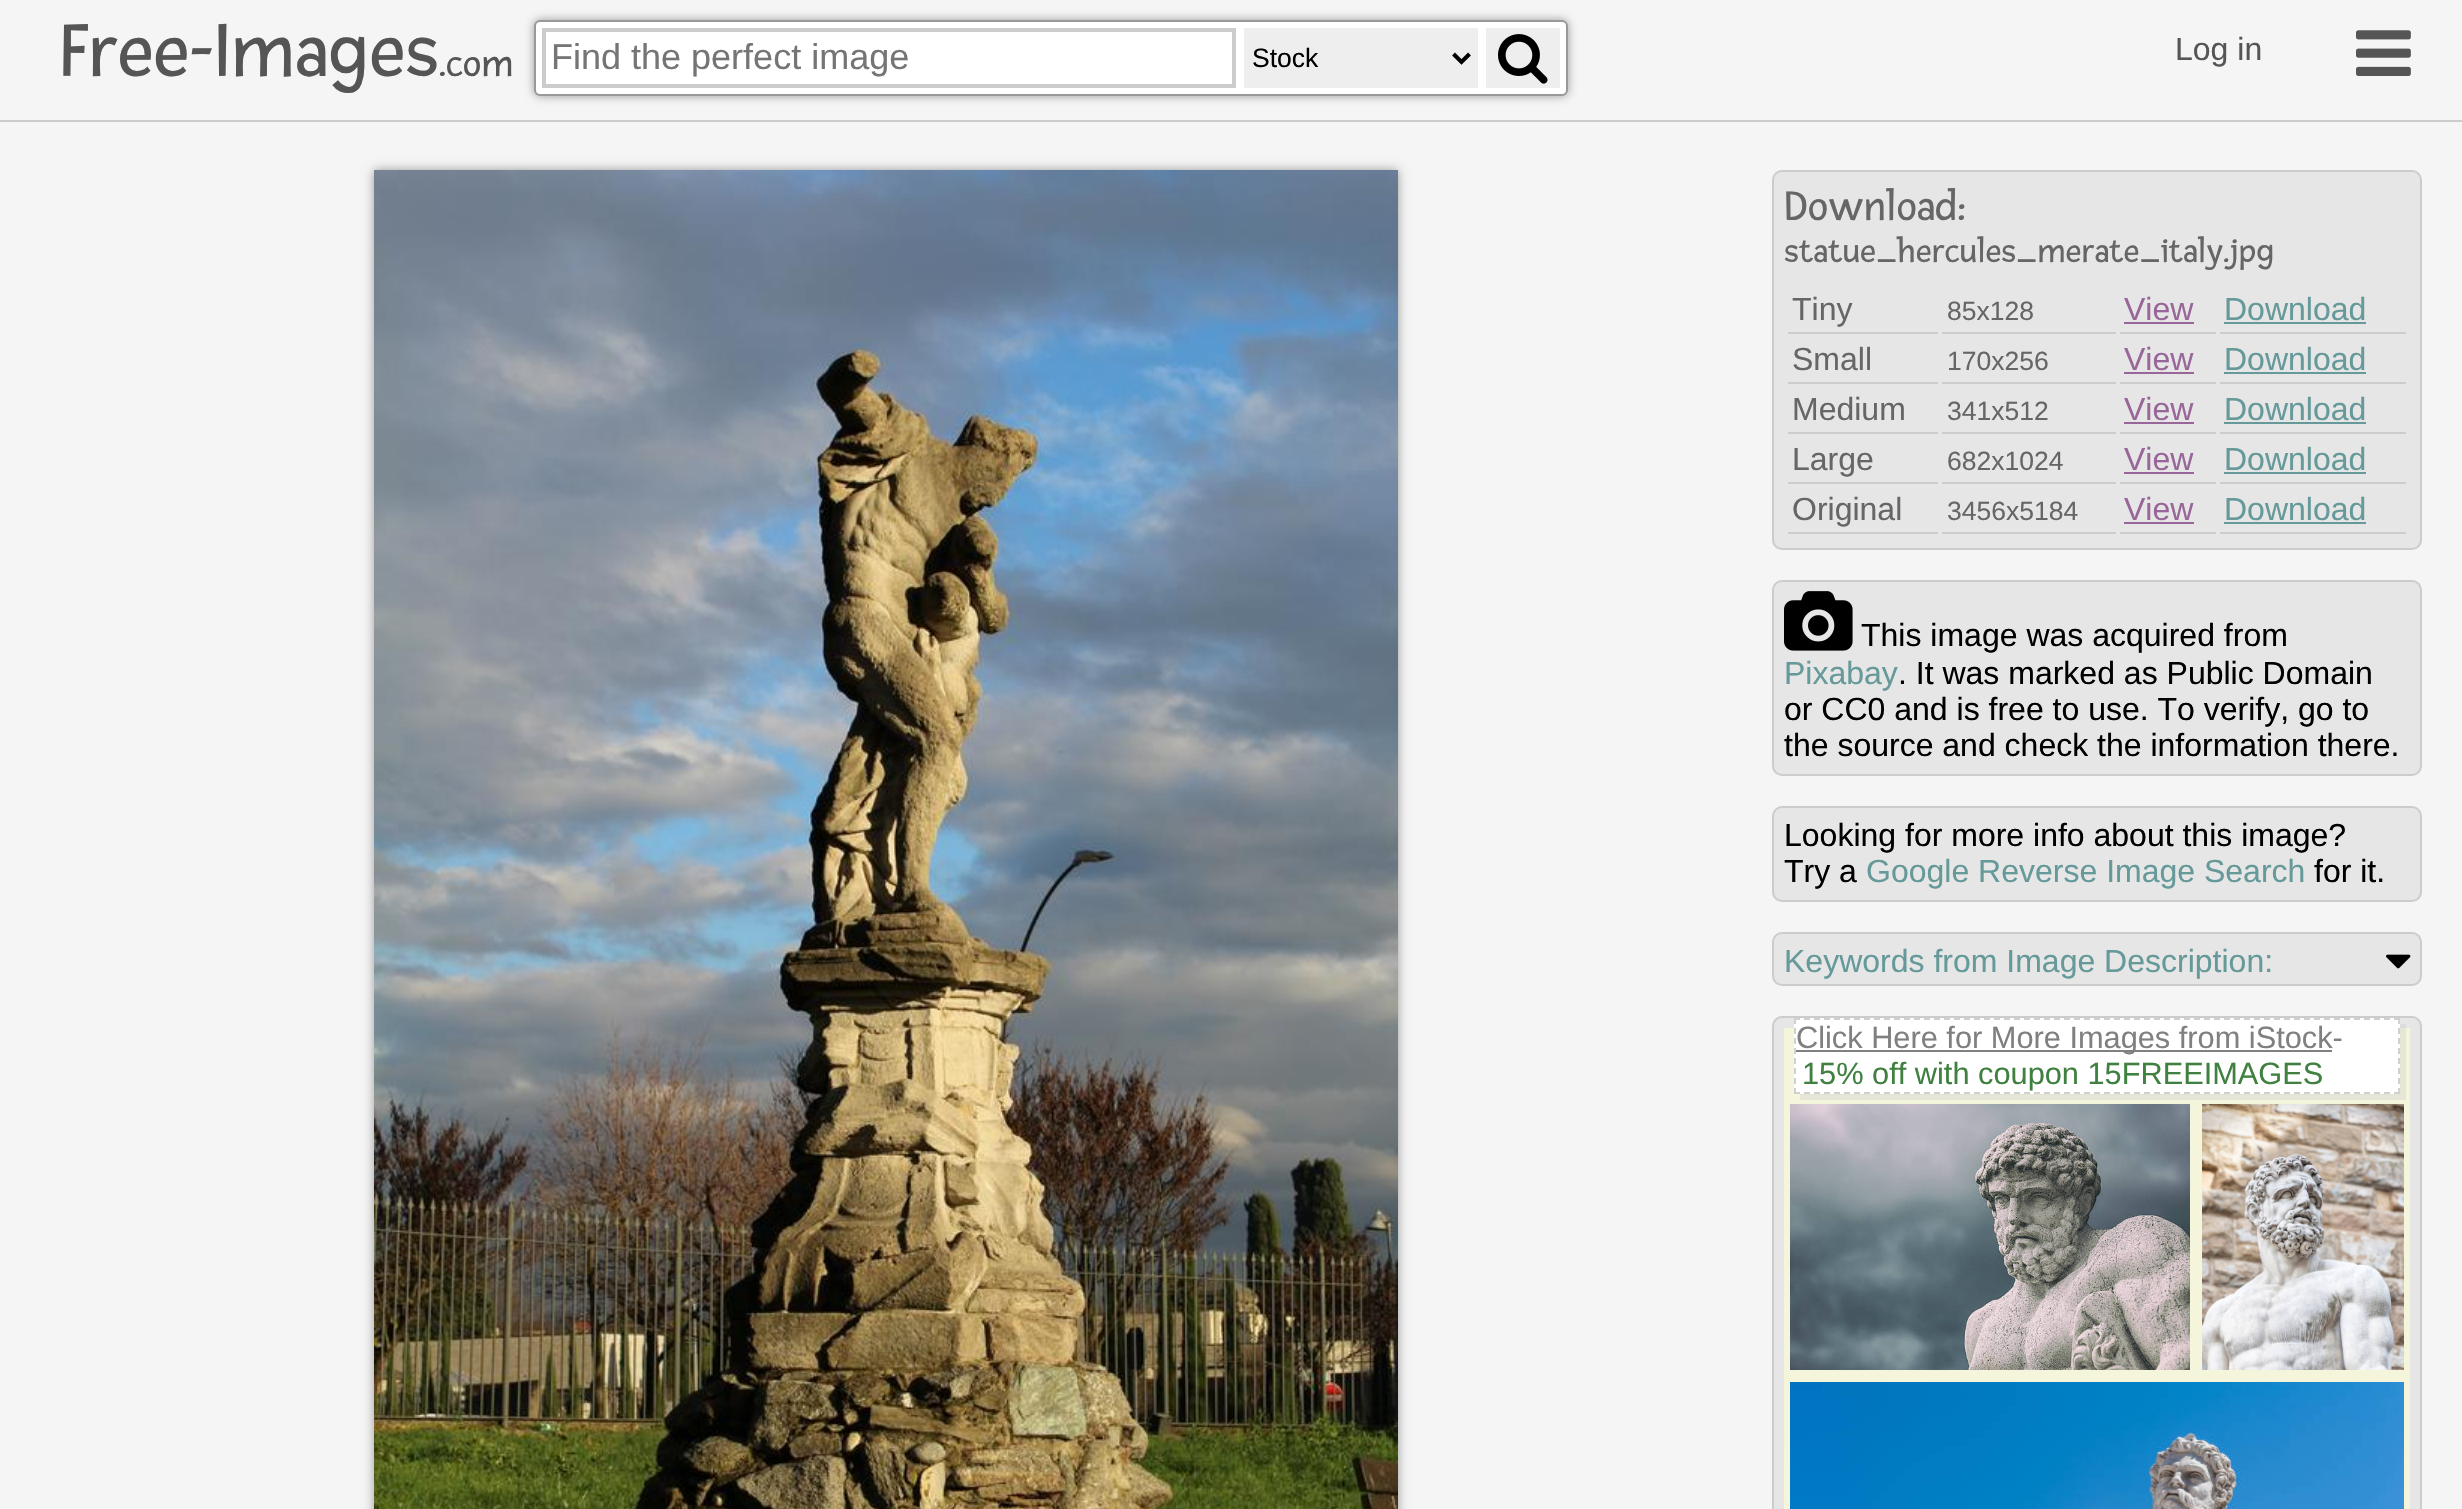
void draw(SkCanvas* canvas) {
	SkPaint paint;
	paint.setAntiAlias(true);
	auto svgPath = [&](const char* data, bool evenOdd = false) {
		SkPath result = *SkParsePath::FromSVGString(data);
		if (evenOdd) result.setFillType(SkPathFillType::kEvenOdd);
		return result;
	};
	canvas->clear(0xfff5f5f5);
	paint.setColor(0xffcccccc);
	canvas->drawRect(SkRect::MakeXYWH(0, 120, 2462, 2), paint);
	SkFont f1(fontMgr->matchFamilyStyle("Fresca", SkFontStyle::Normal()), 80);
	f1.setSubpixel(true);
	paint.setColor(0xff555555);
	canvas->drawString("Free-Images", 60, 76, f1, paint);
	SkFont f2(fontMgr->matchFamilyStyle("Fresca", SkFontStyle::Normal()), 40);
	f2.setSubpixel(true);
	canvas->drawString(".com", 439, 76, f2, paint);
	paint.setColor(0xff999999);
	paint.setMaskFilter(SkMaskFilter::MakeBlur(kNormal_SkBlurStyle, 5));
	canvas->drawRoundRect(SkRect::MakeXYWH(534, 20, 1034, 76), 6, 6, paint);
	paint.setMaskFilter(nullptr);
	paint.setColor(0xffffffff);
	canvas->drawRoundRect(SkRect::MakeXYWH(535, 21, 1032, 74), 5, 5, paint);
	paint.setStroke(true);
	paint.setStrokeWidth(2);
	paint.setColor(0xff999999);
	canvas->drawRoundRect(SkRect::MakeXYWH(535, 21, 1032, 74), 5, 5, paint);
	paint.setStrokeWidth(4);
	paint.setColor(0xffcccccc);
	canvas->drawRect(SkRect::MakeXYWH(544, 30, 690, 56), paint);
	SkFont f3(fontMgr->matchFamilyStyle("Liberation Sans", SkFontStyle::Normal()), 36);
	f3.setSubpixel(true);
	paint.setStroke(false);
	paint.setColor(0xff757575);
	canvas->drawString("Find the perfect image", 551, 69, f3, paint);
	paint.setColor(0xffeeeeee);
	canvas->drawRect(SkRect::MakeXYWH(1244, 28, 234, 60), paint);
	paint.setStroke(true);
	paint.setColor(0xff000000);
	canvas->drawPath(svgPath("M1453.5 54L1461.5 62L1469.5 54"), paint);
	SkFont f4(fontMgr->matchFamilyStyle("Liberation Sans", SkFontStyle::Normal()), 26.5);
	f4.setSubpixel(true);
	paint.setStroke(false);
	canvas->drawString("Stock", 1252, 67, f4, paint);
	paint.setColor(0xffeeeeee);
	canvas->drawRect(SkRect::MakeXYWH(1486, 28, 74, 60), paint);
	canvas->drawImageRect(SkImages::DeferredFromEncodedData(SkData::MakeFromFileName("img1.png")), SkRect::MakeXYWH(1498, 34, 50, 50), SkSamplingOptions());
	SkFont f5(fontMgr->matchFamilyStyle("Liberation Sans", SkFontStyle::Normal()), 32);
	f5.setSubpixel(true);
	paint.setColor(0xff555555);
	canvas->drawString("Log in", 2175, 60, f5, paint);
	canvas->drawImageRect(SkImages::DeferredFromEncodedData(SkData::MakeFromFileName("img2.png")), SkRect::MakeXYWH(2356, 30, 55, 46), SkSamplingOptions());
	paint.setColor(0xff999999);
	paint.setMaskFilter(SkMaskFilter::MakeBlur(kNormal_SkBlurStyle, 5));
	canvas->drawRect(SkRect::MakeXYWH(374, 170, 1024, 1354), paint);
	paint.setMaskFilter(nullptr);
	canvas->drawImageRect(SkImages::DeferredFromEncodedData(SkData::MakeFromFileName("img3.png")), SkRect::MakeXYWH(374, 170, 1024, 1339), SkSamplingOptions());
	paint.setColor(0xffe6e6e6);
	canvas->drawRoundRect(SkRect::MakeXYWH(1773, 171, 648, 378), 9, 9, paint);
	paint.setStroke(true);
	paint.setStrokeWidth(2);
	paint.setColor(0xffcccccc);
	canvas->drawRoundRect(SkRect::MakeXYWH(1773, 171, 648, 378), 9, 9, paint);
	SkFont f6(fontMgr->matchFamilyStyle("Fresca", SkFontStyle::Normal()), 44);
	f6.setSubpixel(true);
	paint.setStroke(false);
	paint.setColor(0xff666666);
	canvas->drawString("Download:", 1784, 220, f6, paint);
	SkFont f7(fontMgr->matchFamilyStyle("Fresca", SkFontStyle::Normal()), 35.25);
	f7.setSubpixel(true);
	canvas->drawString("statue_hercules_merate_italy.jpg", 1784, 262, f7, paint);
	paint.setColor(0xffcccccc);
	canvas->drawRect(SkRect::MakeXYWH(1788, 332, 150, 2), paint);
	paint.setColor(0xff666666);
	canvas->drawString("Tiny", 1792, 320, f5, paint);
	paint.setColor(0xffcccccc);
	canvas->drawRect(SkRect::MakeXYWH(1942, 332, 174, 2), paint);
	paint.setColor(0xff666666);
	canvas->drawString("85x128", 1947, 320, f4, paint);
	paint.setColor(0xffcccccc);
	canvas->drawRect(SkRect::MakeXYWH(2120, 332, 96, 2), paint);
	paint.setColor(0xff996699);
	canvas->drawString("View", 2124, 320, f5, paint);
	canvas->drawRect(SkRect::MakeXYWH(2124, 322, 70, 2), paint);
	paint.setColor(0xffcccccc);
	canvas->drawRect(SkRect::MakeXYWH(2220, 332, 186, 2), paint);
	paint.setColor(0xff669999);
	canvas->drawString("Download", 2224, 320, f5, paint);
	canvas->drawRect(SkRect::MakeXYWH(2224, 322, 142, 2), paint);
	paint.setColor(0xffcccccc);
	canvas->drawRect(SkRect::MakeXYWH(1788, 382, 150, 2), paint);
	paint.setColor(0xff666666);
	canvas->drawString("Small", 1792, 370, f5, paint);
	paint.setColor(0xffcccccc);
	canvas->drawRect(SkRect::MakeXYWH(1942, 382, 174, 2), paint);
	paint.setColor(0xff666666);
	canvas->drawString("170x256", 1947, 370, f4, paint);
	paint.setColor(0xffcccccc);
	canvas->drawRect(SkRect::MakeXYWH(2120, 382, 96, 2), paint);
	paint.setColor(0xff996699);
	canvas->drawString("View", 2124, 370, f5, paint);
	canvas->drawRect(SkRect::MakeXYWH(2124, 372, 70, 2), paint);
	paint.setColor(0xffcccccc);
	canvas->drawRect(SkRect::MakeXYWH(2220, 382, 186, 2), paint);
	paint.setColor(0xff669999);
	canvas->drawString("Download", 2224, 370, f5, paint);
	canvas->drawRect(SkRect::MakeXYWH(2224, 372, 142, 2), paint);
	paint.setColor(0xffcccccc);
	canvas->drawRect(SkRect::MakeXYWH(1788, 432, 150, 2), paint);
	paint.setColor(0xff666666);
	canvas->drawString("Medium", 1792, 420, f5, paint);
	paint.setColor(0xffcccccc);
	canvas->drawRect(SkRect::MakeXYWH(1942, 432, 174, 2), paint);
	paint.setColor(0xff666666);
	canvas->drawString("341x512", 1947, 420, f4, paint);
	paint.setColor(0xffcccccc);
	canvas->drawRect(SkRect::MakeXYWH(2120, 432, 96, 2), paint);
	paint.setColor(0xff996699);
	canvas->drawString("View", 2124, 420, f5, paint);
	canvas->drawRect(SkRect::MakeXYWH(2124, 422, 70, 2), paint);
	paint.setColor(0xffcccccc);
	canvas->drawRect(SkRect::MakeXYWH(2220, 432, 186, 2), paint);
	paint.setColor(0xff669999);
	canvas->drawString("Download", 2224, 420, f5, paint);
	canvas->drawRect(SkRect::MakeXYWH(2224, 422, 142, 2), paint);
	paint.setColor(0xffcccccc);
	canvas->drawRect(SkRect::MakeXYWH(1788, 482, 150, 2), paint);
	paint.setColor(0xff666666);
	canvas->drawString("Large", 1792, 470, f5, paint);
	paint.setColor(0xffcccccc);
	canvas->drawRect(SkRect::MakeXYWH(1942, 482, 174, 2), paint);
	paint.setColor(0xff666666);
	canvas->drawString("682x1024", 1947, 470, f4, paint);
	paint.setColor(0xffcccccc);
	canvas->drawRect(SkRect::MakeXYWH(2120, 482, 96, 2), paint);
	paint.setColor(0xff996699);
	canvas->drawString("View", 2124, 470, f5, paint);
	canvas->drawRect(SkRect::MakeXYWH(2124, 472, 70, 2), paint);
	paint.setColor(0xffcccccc);
	canvas->drawRect(SkRect::MakeXYWH(2220, 482, 186, 2), paint);
	paint.setColor(0xff669999);
	canvas->drawString("Download", 2224, 470, f5, paint);
	canvas->drawRect(SkRect::MakeXYWH(2224, 472, 142, 2), paint);
	paint.setColor(0xffcccccc);
	canvas->drawRect(SkRect::MakeXYWH(1788, 532, 150, 2), paint);
	paint.setColor(0xff666666);
	canvas->drawString("Original", 1792, 520, f5, paint);
	paint.setColor(0xffcccccc);
	canvas->drawRect(SkRect::MakeXYWH(1942, 532, 174, 2), paint);
	paint.setColor(0xff666666);
	canvas->drawString("3456x5184", 1947, 520, f4, paint);
	paint.setColor(0xffcccccc);
	canvas->drawRect(SkRect::MakeXYWH(2120, 532, 96, 2), paint);
	paint.setColor(0xff996699);
	canvas->drawString("View", 2124, 520, f5, paint);
	canvas->drawRect(SkRect::MakeXYWH(2124, 522, 70, 2), paint);
	paint.setColor(0xffcccccc);
	canvas->drawRect(SkRect::MakeXYWH(2220, 532, 186, 2), paint);
	paint.setColor(0xff669999);
	canvas->drawString("Download", 2224, 520, f5, paint);
	canvas->drawRect(SkRect::MakeXYWH(2224, 522, 142, 2), paint);
	paint.setColor(0xffe6e6e6);
	canvas->drawRoundRect(SkRect::MakeXYWH(1773, 581, 648, 194), 9, 9, paint);
	paint.setStroke(true);
	paint.setColor(0xffcccccc);
	canvas->drawRoundRect(SkRect::MakeXYWH(1773, 581, 648, 194), 9, 9, paint);
	canvas->drawImageRect(SkImages::DeferredFromEncodedData(SkData::MakeFromFileName("img4.png")), SkRect::MakeXYWH(1784, 591, 69, 60), SkSamplingOptions());
	paint.setStroke(false);
	paint.setColor(0xff000000);
	canvas->drawString("This image was acquired from", 1861, 646, f5, paint);
	paint.setColor(0xff669999);
	canvas->drawString("Pixabay", 1784, 684, f5, paint);
	paint.setColor(0xff000000);
	canvas->drawString(". It was marked as Public Domain", 1898, 684, f5, paint);
	canvas->drawString("or CC0 and is free to use. To verify, go to", 1784, 720, f5, paint);
	canvas->drawString("the source and check the information there.", 1784, 756, f5, paint);
	paint.setColor(0xffe6e6e6);
	canvas->drawRoundRect(SkRect::MakeXYWH(1773, 807, 648, 94), 9, 9, paint);
	paint.setStroke(true);
	paint.setColor(0xffcccccc);
	canvas->drawRoundRect(SkRect::MakeXYWH(1773, 807, 648, 94), 9, 9, paint);
	paint.setStroke(false);
	paint.setColor(0xff000000);
	canvas->drawString("Looking for more info about this image?", 1784, 846, f5, paint);
	canvas->drawString("Try a", 1784, 882, f5, paint);
	paint.setColor(0xff669999);
	canvas->drawString("Google Reverse Image Search", 1866, 882, f5, paint);
	paint.setColor(0xff000000);
	canvas->drawString("for it.", 2314, 882, f5, paint);
	paint.setColor(0xffe6e6e6);
	canvas->drawRoundRect(SkRect::MakeXYWH(1773, 933, 648, 52), 9, 9, paint);
	paint.setStroke(true);
	paint.setColor(0xffcccccc);
	canvas->drawRoundRect(SkRect::MakeXYWH(1773, 933, 648, 52), 9, 9, paint);
	paint.setStroke(false);
	paint.setColor(0xff669999);
	canvas->drawString("Keywords from Image Description:", 1784, 972, f5, paint);
	canvas->drawImageRect(SkImages::DeferredFromEncodedData(SkData::MakeFromFileName("img5.png")), SkRect::MakeXYWH(2386, 954, 25, 15), SkSamplingOptions());
	paint.setColor(0xffe6e6e6);
	canvas->drawRoundRect(SkRect::MakeXYWH(1773, 1017, 648, 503), 9, 9, paint);
	paint.setStroke(true);
	paint.setColor(0xffcccccc);
	canvas->drawRoundRect(SkRect::MakeXYWH(1773, 1017, 648, 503), 9, 9, paint);
	paint.setStroke(false);
	paint.setColor(0xfff5f5dc);
	canvas->drawRect(SkRect::MakeXYWH(1784, 1028, 626, 481), paint);
	paint.setColor(0x61cccccc);
	canvas->drawPath(svgPath("M1800 1094V1100H2406V1024H2400V1094Z"), paint);
	paint.setColor(0xffffffff);
	canvas->drawRect(SkRect::MakeXYWH(1794, 1018, 606, 76), paint);
	paint.setStroke(true);
	paint.setColor(0xffd0d0d0);
	paint.setPathEffect(SkDashPathEffect::Make({{6, 4}}, 0));
	canvas->drawPath(svgPath("M1794 1019H2400"), paint);
	paint.setPathEffect(nullptr);
	paint.setPathEffect(SkDashPathEffect::Make({{6, 4}}, 0));
	canvas->drawPath(svgPath("M2399 1018V1094"), paint);
	paint.setPathEffect(nullptr);
	paint.setPathEffect(SkDashPathEffect::Make({{6, 4}}, 0));
	canvas->drawPath(svgPath("M1794 1093H2400"), paint);
	paint.setPathEffect(nullptr);
	paint.setPathEffect(SkDashPathEffect::Make({{6, 4}}, 0));
	canvas->drawPath(svgPath("M1795 1018V1094"), paint);
	paint.setPathEffect(nullptr);
	paint.setStroke(false);
	paint.setColor(0xff808080);
	canvas->drawRect(SkRect::MakeXYWH(1796, 1050, 536, 2), paint);
	SkFont f8(fontMgr->matchFamilyStyle("Liberation Sans", SkFontStyle::Normal()), 30.75);
	f8.setSubpixel(true);
	canvas->drawString("Click Here for More Images from iStock-", 1796, 1048, f8, paint);
	paint.setColor(0xff408040);
	canvas->drawString("15% off with coupon 15FREEIMAGES", 1802, 1084, f8, paint);
	canvas->drawImageRect(SkImages::DeferredFromEncodedData(SkData::MakeFromFileName("img6.png")), SkRect::MakeXYWH(1790, 1104, 400, 266), SkSamplingOptions());
	canvas->drawImageRect(SkImages::DeferredFromEncodedData(SkData::MakeFromFileName("img7.png")), SkRect::MakeXYWH(2202, 1104, 202, 266), SkSamplingOptions());
	canvas->drawImageRect(SkImages::DeferredFromEncodedData(SkData::MakeFromFileName("img8.png")), SkRect::MakeXYWH(1790, 1382, 614, 127), SkSamplingOptions());
}
